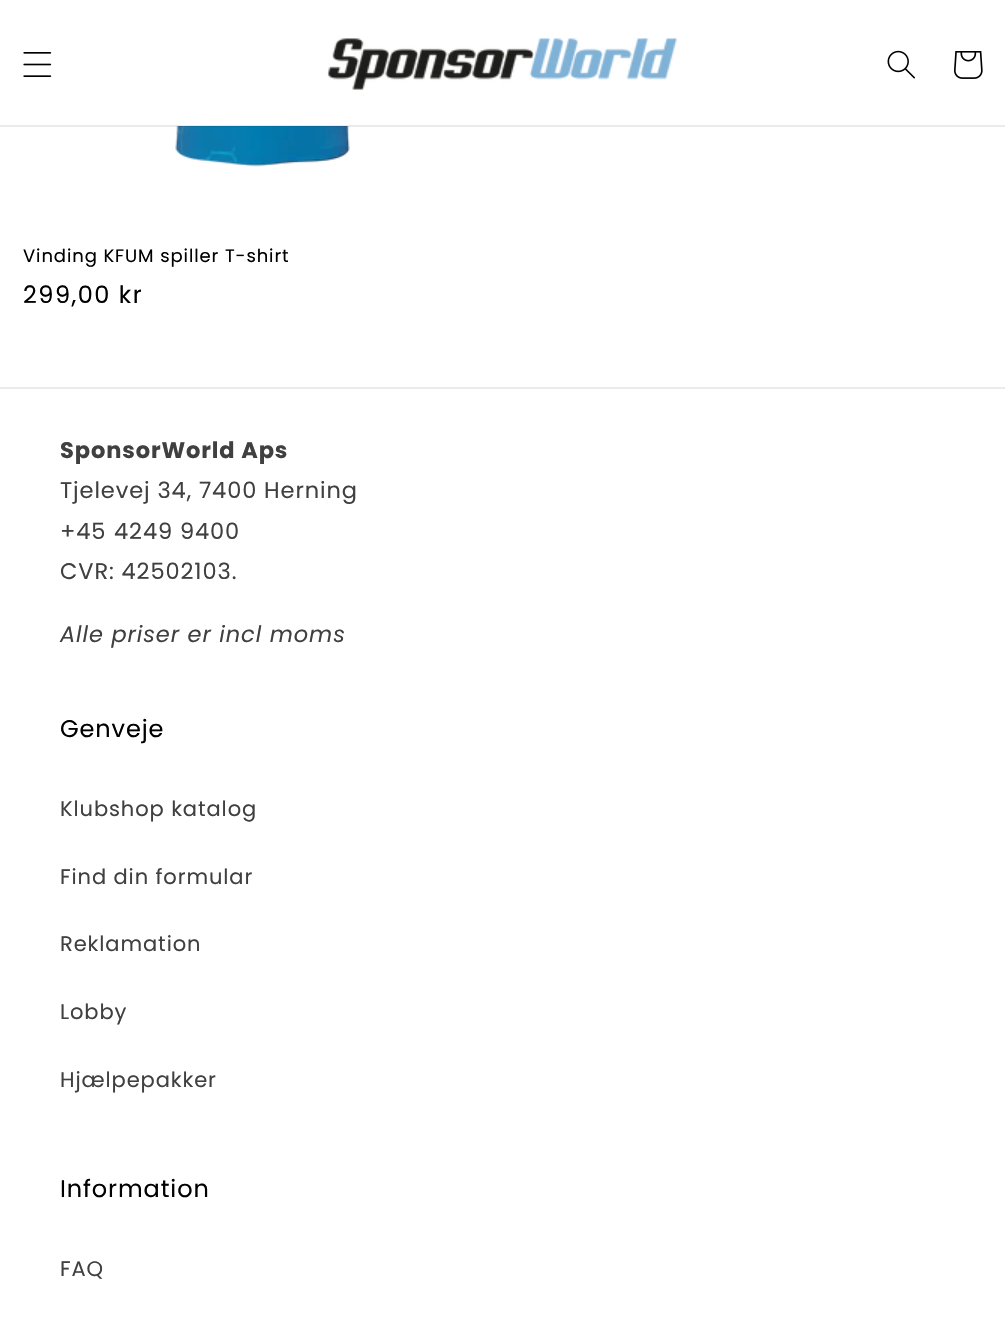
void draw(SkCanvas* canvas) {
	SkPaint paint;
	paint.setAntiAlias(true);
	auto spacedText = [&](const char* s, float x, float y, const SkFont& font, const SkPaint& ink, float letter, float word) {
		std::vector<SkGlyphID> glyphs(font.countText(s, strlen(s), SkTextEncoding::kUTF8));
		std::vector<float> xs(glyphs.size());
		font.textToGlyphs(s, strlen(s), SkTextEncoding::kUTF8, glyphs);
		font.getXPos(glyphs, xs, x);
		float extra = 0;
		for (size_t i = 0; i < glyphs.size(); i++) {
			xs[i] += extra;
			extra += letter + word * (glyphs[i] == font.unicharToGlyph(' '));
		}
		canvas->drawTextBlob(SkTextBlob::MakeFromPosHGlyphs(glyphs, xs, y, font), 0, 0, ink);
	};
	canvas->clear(0xffffffff);
	canvas->drawImageRect(SkImages::DeferredFromEncodedData(SkData::MakeFromFileName("img5.png")), SkRect::MakeXYWH(175, 126, 175, 41), SkSamplingOptions());
	paint.setColor(0x14000000);
	canvas->drawRect(SkRect::MakeXYWH(0, 125, 1005, 2), paint);
	canvas->drawImageRect(SkImages::DeferredFromEncodedData(SkData::MakeFromFileName("img1.png")), SkRect::MakeXYWH(23, 52, 29, 25), SkSamplingOptions());
	canvas->drawImageRect(SkImages::DeferredFromEncodedData(SkData::MakeFromFileName("img2.png")), SkRect::MakeXYWH(327, 38, 350, 52), SkSamplingOptions());
	canvas->drawImageRect(SkImages::DeferredFromEncodedData(SkData::MakeFromFileName("img3.png")), SkRect::MakeXYWH(887, 50, 28, 29), SkSamplingOptions());
	canvas->drawImageRect(SkImages::DeferredFromEncodedData(SkData::MakeFromFileName("img4.png")), SkRect::MakeXYWH(954, 51, 29, 28), SkSamplingOptions());
	SkFont f1(fontMgr->matchFamilyStyle("Poppins", SkFontStyle::Normal()), 18);
	f1.setSubpixel(true);
	paint.setColor(0xff000000);
	spacedText("Vinding KFUM spiller T-shirt", 23, 262, f1, paint, 0.9, 0);
	SkFont f2(fontMgr->matchFamilyStyle("Poppins", SkFontStyle::Normal()), 24);
	f2.setSubpixel(true);
	spacedText("299,00 kr", 23, 303, f2, paint, 1.5, 0);
	paint.setColor(0xffebebeb);
	canvas->drawRect(SkRect::MakeXYWH(0, 387, 1005, 2), paint);
	SkFont f3(fontMgr->matchFamilyStyle("Poppins", SkFontStyle::Bold()), 22.5);
	f3.setSubpixel(true);
	paint.setColor(0xff404040);
	spacedText("SponsorWorld Aps", 60, 458, f3, paint, 0.9, 0);
	SkFont f4(fontMgr->matchFamilyStyle("Poppins", SkFontStyle::Normal()), 22.5);
	f4.setSubpixel(true);
	spacedText("Tjelevej 34, 7400 Herning", 60, 498, f4, paint, 0.9, 0);
	spacedText("+45", 60, 539, f4, paint, 0.9, 0);
	spacedText("4249 9400", 114, 539, f4, paint, 0.9, 0);
	spacedText("CVR: 42502103.", 60, 579, f4, paint, 0.9, 0);
	SkFont f5(fontMgr->matchFamilyStyle("Poppins", SkFontStyle::Italic()), 22.5);
	f5.setSubpixel(true);
	spacedText("Alle priser er incl moms", 60, 642, f5, paint, 0.9, 0);
	paint.setColor(0xff000000);
	spacedText("Genveje", 60, 737, f2, paint, 0.9, 0);
	SkFont f6(fontMgr->matchFamilyStyle("Poppins", SkFontStyle::Normal()), 21);
	f6.setSubpixel(true);
	paint.setColor(0xff404040);
	spacedText("Klubshop katalog", 60, 816, f6, paint, 0.9, 0);
	spacedText("Find din formular", 60, 884, f6, paint, 0.9, 0);
	spacedText("Reklamation", 60, 951, f6, paint, 0.9, 0);
	spacedText("Lobby", 60, 1019, f6, paint, 0.9, 0);
	spacedText("Hjælpepakker", 60, 1087, f6, paint, 0.9, 0);
	paint.setColor(0xff000000);
	spacedText("Information", 60, 1197, f2, paint, 0.9, 0);
	paint.setColor(0xff404040);
	spacedText("FAQ", 60, 1276, f6, paint, 0.9, 0);
}
